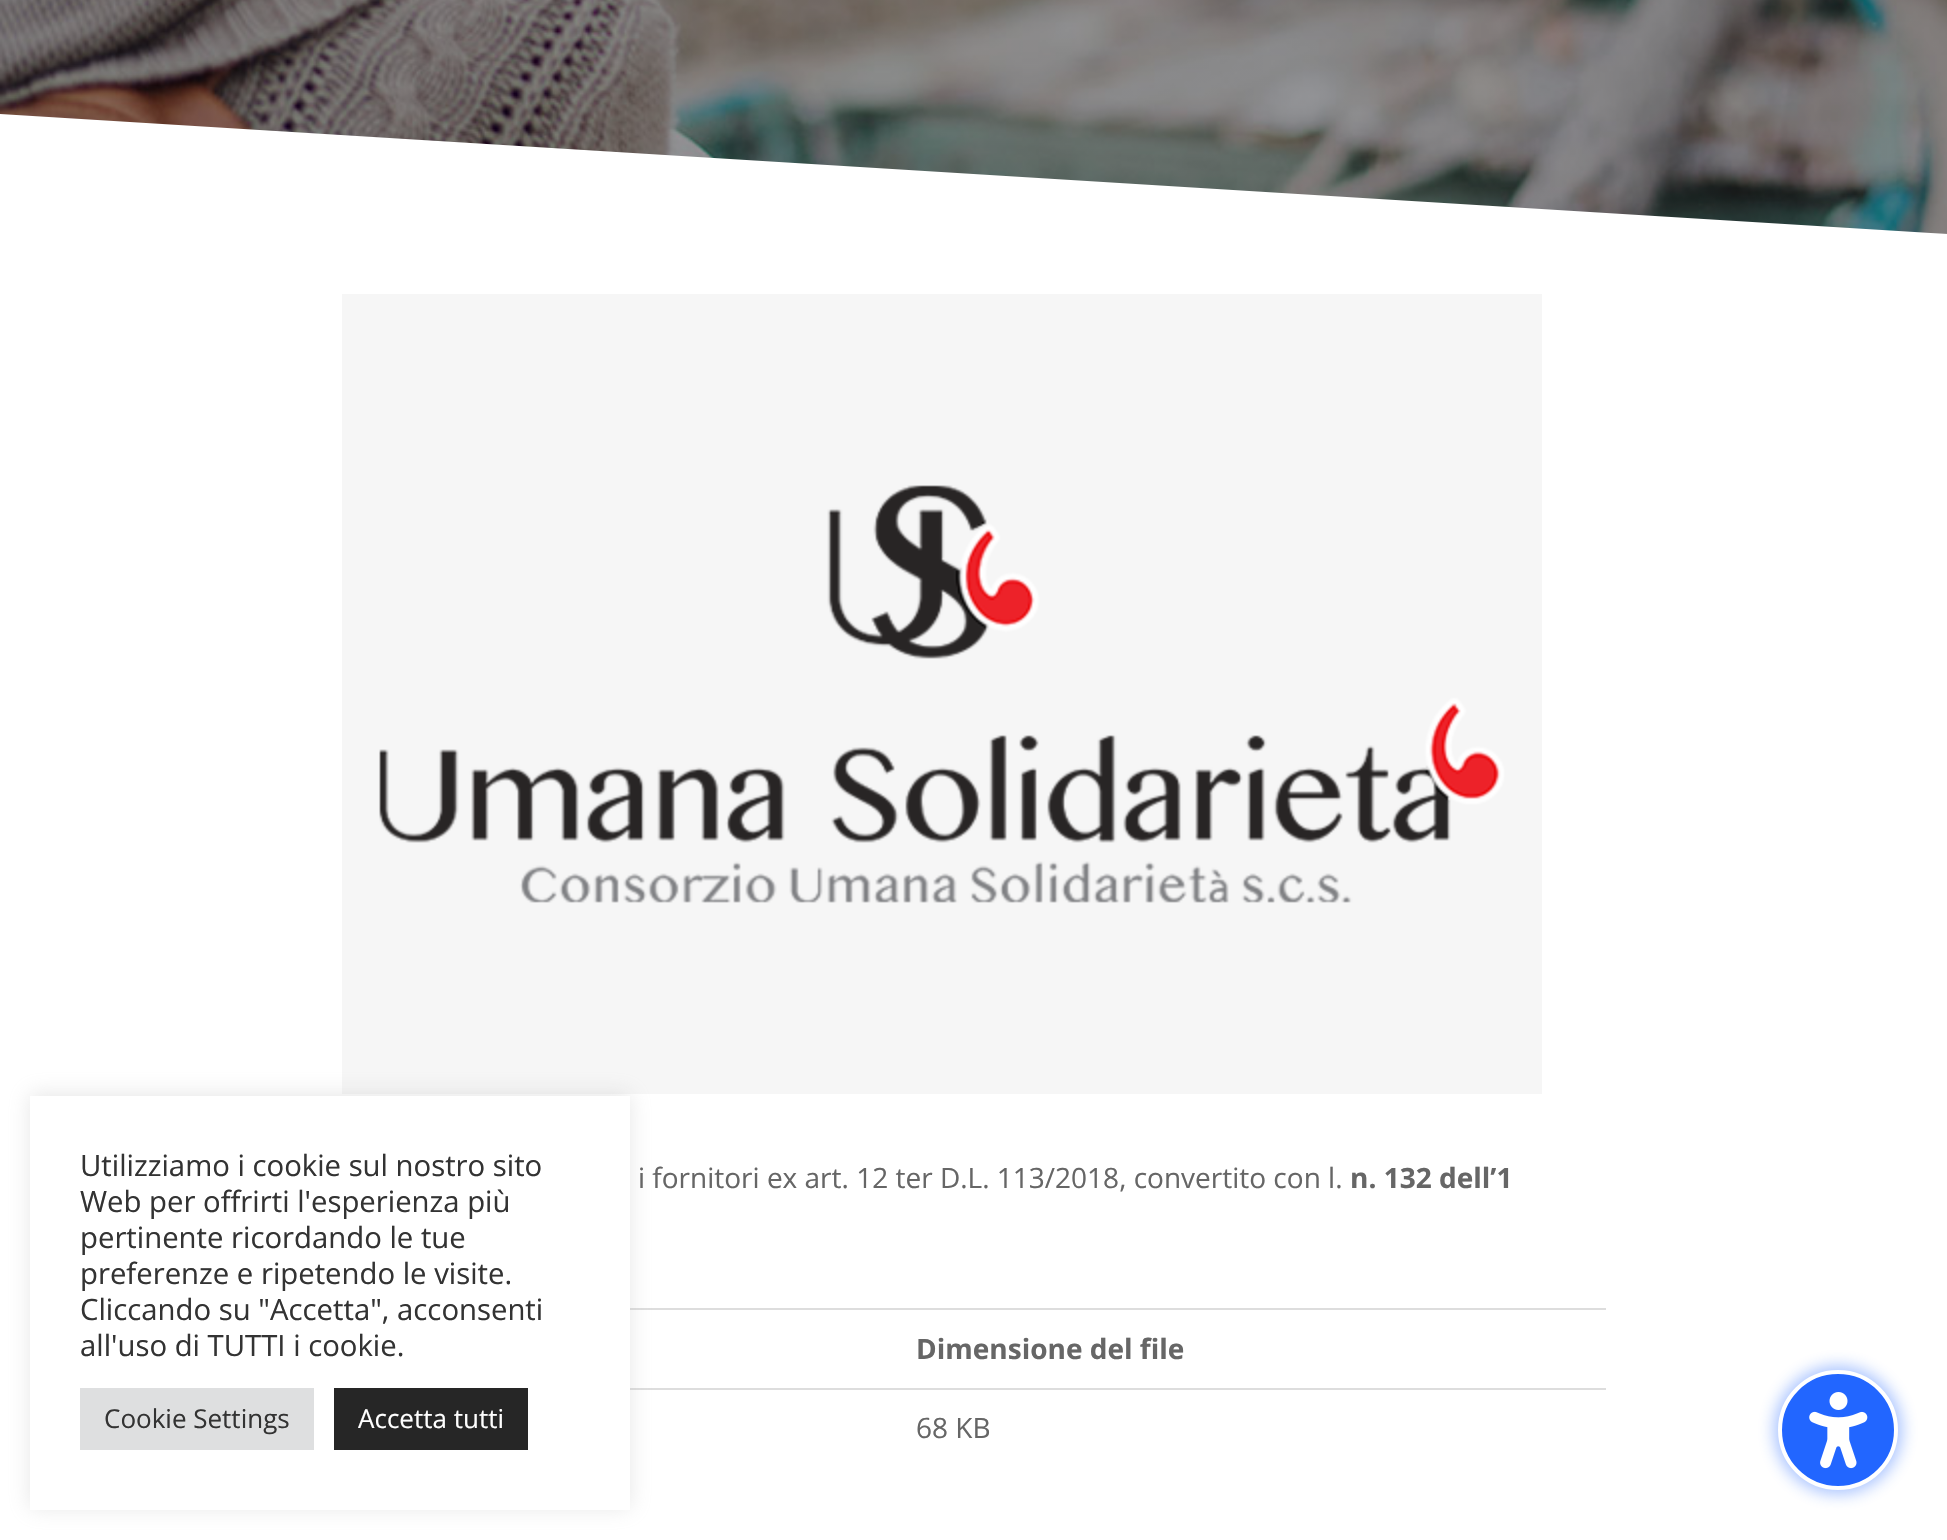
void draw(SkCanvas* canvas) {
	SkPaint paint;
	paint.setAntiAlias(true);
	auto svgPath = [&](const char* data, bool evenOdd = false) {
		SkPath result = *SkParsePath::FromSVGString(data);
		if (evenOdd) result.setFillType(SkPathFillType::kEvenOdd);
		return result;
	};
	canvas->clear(0xffffffff);
	canvas->drawImageRect(SkImages::DeferredFromEncodedData(SkData::MakeFromFileName("img2.png")), SkRect::MakeXYWH(342, 294, 1200, 800), SkSamplingOptions());
	paint.setColor(0xffdddddd);
	canvas->drawRect(SkRect::MakeXYWH(630, 1308, 976, 2), paint);
	canvas->drawRect(SkRect::MakeXYWH(630, 1388, 976, 2), paint);
	paint.setColor(0x4dacabab);
	paint.setMaskFilter(SkMaskFilter::MakeBlur(kNormal_SkBlurStyle, 10));
	canvas->drawRect(SkRect::MakeXYWH(30, 1094, 600, 414), paint);
	paint.setMaskFilter(nullptr);
	paint.setColor(0xffffffff);
	canvas->drawRect(SkRect::MakeXYWH(30, 1096, 600, 414), paint);
	SkFont f1(fontMgr->matchFamilyStyle("Open Sans", SkFontStyle::Normal()), 29.3);
	f1.setSubpixel(true);
	paint.setColor(0xff333333);
	canvas->drawString("Utilizziamo i cookie sul nostro sito", 80, 1176, f1, paint);
	canvas->drawString("Web per offrirti l'esperienza più", 80, 1212, f1, paint);
	canvas->drawString("pertinente ricordando le tue", 80, 1248, f1, paint);
	canvas->drawString("preferenze e ripetendo le visite.", 80, 1284, f1, paint);
	canvas->drawString("Cliccando su \"Accetta\", acconsenti", 80, 1320, f1, paint);
	canvas->drawString("all'uso di TUTTI i cookie.", 80, 1356, f1, paint);
	paint.setColor(0xffdedfe0);
	canvas->drawRect(SkRect::MakeXYWH(80, 1388, 234, 62), paint);
	SkFont f2(fontMgr->matchFamilyStyle("Open Sans", SkFontStyle::Normal()), 26);
	f2.setSubpixel(true);
	paint.setColor(0xff333333);
	canvas->drawString("Cookie Settings", 104, 1428, f2, paint);
	paint.setColor(0xff262626);
	canvas->drawRect(SkRect::MakeXYWH(334, 1388, 194, 62), paint);
	paint.setColor(0xffffffff);
	canvas->drawString("Accetta tutti", 358, 1428, f2, paint);
	canvas->drawImageRect(SkImages::DeferredFromEncodedData(SkData::MakeFromFileName("img1.png")), SkRect::MakeXYWH(0, 0, 1947, 234), SkSamplingOptions());
	canvas->drawPath(svgPath("M0 114V234H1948Z"), paint);
	SkFont f3(fontMgr->matchFamilyStyle("Open Sans", SkFontStyle::Normal()), 28);
	f3.setSubpixel(true);
	paint.setColor(0xff666666);
	canvas->drawString("i fornitori ex art. 12 ter D.L. 113/2018, convertito con l.", 638, 1188, f3, paint);
	SkFont f4(fontMgr->matchFamilyStyle("Open Sans", SkFontStyle::Bold()), 28);
	f4.setSubpixel(true);
	canvas->drawString("n. 132 dell’1", 1350, 1188, f4, paint);
	canvas->drawString("Dimensione del file", 916, 1359, f4, paint);
	canvas->drawString("68 KB", 916, 1438, f3, paint);
	paint.setColor(0x662266ff);
	paint.setMaskFilter(SkMaskFilter::MakeBlur(kNormal_SkBlurStyle, 8));
	canvas->drawRoundRect(SkRect::MakeXYWH(1774, 1366, 128, 128), 64, 64, paint);
	paint.setMaskFilter(nullptr);
	paint.setColor(0xff2266ff);
	canvas->drawCircle(1838, 1430, 58, paint);
	paint.setStroke(true);
	paint.setStrokeWidth(4);
	paint.setColor(0xffffffff);
	canvas->drawCircle(1838, 1430, 58, paint);
	canvas->drawImageRect(SkImages::DeferredFromEncodedData(SkData::MakeFromFileName("img3.png")), SkRect::MakeXYWH(1809, 1392, 59, 77), SkSamplingOptions());
}
